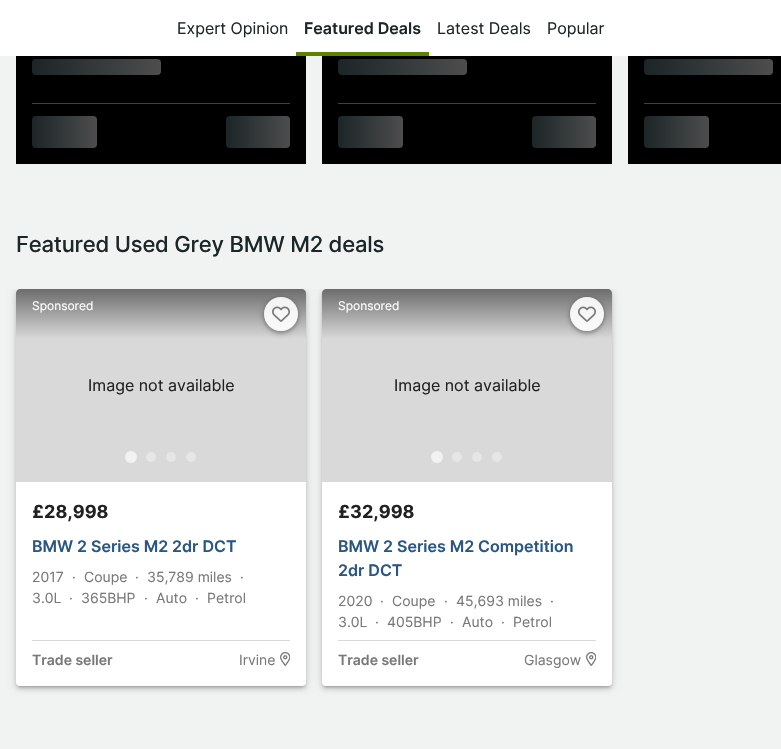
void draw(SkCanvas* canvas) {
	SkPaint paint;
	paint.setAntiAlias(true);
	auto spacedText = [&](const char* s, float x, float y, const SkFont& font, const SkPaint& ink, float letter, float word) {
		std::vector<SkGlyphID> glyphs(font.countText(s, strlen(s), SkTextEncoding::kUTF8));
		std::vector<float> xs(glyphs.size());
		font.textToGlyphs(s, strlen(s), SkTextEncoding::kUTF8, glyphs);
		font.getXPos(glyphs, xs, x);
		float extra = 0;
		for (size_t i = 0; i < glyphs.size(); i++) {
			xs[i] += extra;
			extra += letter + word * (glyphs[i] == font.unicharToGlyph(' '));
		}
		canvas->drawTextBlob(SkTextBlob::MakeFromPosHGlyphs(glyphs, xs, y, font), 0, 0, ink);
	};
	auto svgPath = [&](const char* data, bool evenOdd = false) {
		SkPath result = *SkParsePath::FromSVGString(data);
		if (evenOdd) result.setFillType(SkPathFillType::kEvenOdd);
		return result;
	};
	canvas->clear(0xfff1f2f2);
	paint.setColor(0xffffffff);
	canvas->drawRect(SkRect::MakeXYWH(0, 0, 781, 56), paint);
	SkFont f1(fontMgr->matchFamilyStyle("Inter", SkFontStyle::Normal()), 16);
	f1.setSubpixel(true);
	paint.setColor(0xff1c2527);
	canvas->drawString("Expert Opinion", 177, 34, f1, paint);
	SkFont f2(fontMgr->matchFamilyStyle("Inter", SkFontStyle(600, SkFontStyle::kNormal_Width, SkFontStyle::kUpright_Slant)), 16);
	f2.setSubpixel(true);
	canvas->drawString("Featured Deals", 304, 34, f2, paint);
	paint.setColor(0xff5d8200);
	canvas->drawRect(SkRect::MakeXYWH(296, 52, 133, 4), paint);
	paint.setColor(0xff1c2527);
	canvas->drawString("Latest Deals", 437, 34, f1, paint);
	canvas->drawString("Popular", 547, 34, f1, paint);
	paint.setColor(0xff000000);
	canvas->drawRect(SkRect::MakeXYWH(16, 56, 290, 108), paint);
	{
		const SkColor colors[] = {0xff1c2527, 0xff4d4d4d};
		const float stops[] = {0, 1};
		const SkPoint ends[] = {{32, 67}, {161, 67}};
		paint.setShader(SkGradientShader::MakeLinear(ends, colors, stops, 2, SkTileMode::kClamp));
		paint.setAlpha(255);
	}
	canvas->drawRoundRect(SkRect::MakeXYWH(32, 59, 129, 16), 4, 4, paint);
	paint.setShader(nullptr);
	paint.setColor(0xff404040);
	canvas->drawRect(SkRect::MakeXYWH(32, 103, 258, 1), paint);
	{
		const SkColor colors[] = {0xff1c2527, 0xff4d4d4d};
		const float stops[] = {0, 1};
		const SkPoint ends[] = {{32, 132}, {97, 132}};
		paint.setShader(SkGradientShader::MakeLinear(ends, colors, stops, 2, SkTileMode::kClamp));
		paint.setAlpha(255);
	}
	canvas->drawRoundRect(SkRect::MakeXYWH(32, 116, 65, 32), 4, 4, paint);
	{
		const SkColor colors[] = {0xff1c2527, 0xff4d4d4d};
		const float stops[] = {0, 1};
		const SkPoint ends[] = {{226, 132}, {290, 132}};
		paint.setShader(SkGradientShader::MakeLinear(ends, colors, stops, 2, SkTileMode::kClamp));
		paint.setAlpha(255);
	}
	canvas->drawRoundRect(SkRect::MakeXYWH(226, 116, 64, 32), 4, 4, paint);
	paint.setShader(nullptr);
	paint.setColor(0xff000000);
	canvas->drawRect(SkRect::MakeXYWH(322, 56, 290, 108), paint);
	{
		const SkColor colors[] = {0xff1c2527, 0xff4d4d4d};
		const float stops[] = {0, 1};
		const SkPoint ends[] = {{338, 67}, {467, 67}};
		paint.setShader(SkGradientShader::MakeLinear(ends, colors, stops, 2, SkTileMode::kClamp));
		paint.setAlpha(255);
	}
	canvas->drawRoundRect(SkRect::MakeXYWH(338, 59, 129, 16), 4, 4, paint);
	paint.setShader(nullptr);
	paint.setColor(0xff404040);
	canvas->drawRect(SkRect::MakeXYWH(338, 103, 258, 1), paint);
	{
		const SkColor colors[] = {0xff1c2527, 0xff4d4d4d};
		const float stops[] = {0, 1};
		const SkPoint ends[] = {{338, 132}, {403, 132}};
		paint.setShader(SkGradientShader::MakeLinear(ends, colors, stops, 2, SkTileMode::kClamp));
		paint.setAlpha(255);
	}
	canvas->drawRoundRect(SkRect::MakeXYWH(338, 116, 65, 32), 4, 4, paint);
	{
		const SkColor colors[] = {0xff1c2527, 0xff4d4d4d};
		const float stops[] = {0, 1};
		const SkPoint ends[] = {{532, 132}, {596, 132}};
		paint.setShader(SkGradientShader::MakeLinear(ends, colors, stops, 2, SkTileMode::kClamp));
		paint.setAlpha(255);
	}
	canvas->drawRoundRect(SkRect::MakeXYWH(532, 116, 64, 32), 4, 4, paint);
	paint.setShader(nullptr);
	paint.setColor(0xff000000);
	canvas->drawRect(SkRect::MakeXYWH(628, 56, 153, 108), paint);
	{
		const SkColor colors[] = {0xff1c2527, 0xff4d4d4d};
		const float stops[] = {0, 1};
		const SkPoint ends[] = {{644, 67}, {773, 67}};
		paint.setShader(SkGradientShader::MakeLinear(ends, colors, stops, 2, SkTileMode::kClamp));
		paint.setAlpha(255);
	}
	canvas->drawRoundRect(SkRect::MakeXYWH(644, 59, 129, 16), 4, 4, paint);
	paint.setShader(nullptr);
	paint.setColor(0xff404040);
	canvas->drawRect(SkRect::MakeXYWH(644, 103, 137, 1), paint);
	{
		const SkColor colors[] = {0xff1c2527, 0xff4d4d4d};
		const float stops[] = {0, 1};
		const SkPoint ends[] = {{644, 132}, {709, 132}};
		paint.setShader(SkGradientShader::MakeLinear(ends, colors, stops, 2, SkTileMode::kClamp));
		paint.setAlpha(255);
	}
	canvas->drawRoundRect(SkRect::MakeXYWH(644, 116, 65, 32), 4, 4, paint);
	SkFont f3(fontMgr->matchFamilyStyle("Inter", SkFontStyle(500, SkFontStyle::kNormal_Width, SkFontStyle::kUpright_Slant)), 22);
	f3.setSubpixel(true);
	paint.setShader(nullptr);
	paint.setColor(0xff1c2527);
	spacedText("Featured Used Grey BMW M2 deals", 16, 252, f3, paint, -0.2, 0);
	canvas->save();
	canvas->clipRect(SkRect::MakeXYWH(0, 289, 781, 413));
	paint.setColor(0x1f000000);
	paint.setMaskFilter(SkMaskFilter::MakeBlur(kNormal_SkBlurStyle, 4));
	canvas->drawRoundRect(SkRect::MakeXYWH(16, 290, 290, 397), 4, 4, paint);
	paint.setMaskFilter(nullptr);
	canvas->restore();
	paint.setColor(0x24000000);
	paint.setMaskFilter(SkMaskFilter::MakeBlur(kNormal_SkBlurStyle, 2));
	canvas->drawRoundRect(SkRect::MakeXYWH(16, 292, 290, 397), 4, 4, paint);
	paint.setMaskFilter(nullptr);
	paint.setColor(0x33000000);
	paint.setMaskFilter(SkMaskFilter::MakeBlur(kNormal_SkBlurStyle, 1.5));
	canvas->drawRoundRect(SkRect::MakeXYWH(18, 294, 286, 393), 2, 2, paint);
	paint.setMaskFilter(nullptr);
	paint.setColor(0xffffffff);
	canvas->drawRoundRect(SkRect::MakeXYWH(16, 289, 290, 397), 4, 4, paint);
	paint.setColor(0xffd9d9d9);
	canvas->drawPath(svgPath("M20 289H302C304 289 306 291 306 293V482H16V293C16 291 18 289 20 289Z"), paint);
	{
		const SkColor colors[] = {0x80000000, 0x00000000};
		const float stops[] = {0, 1};
		const SkPoint ends[] = {{161, 289}, {161, 339}};
		paint.setShader(SkGradientShader::MakeLinear(ends, colors, stops, 2, SkTileMode::kClamp));
		paint.setAlpha(255);
	}
	canvas->drawPath(svgPath("M20 289H302C304 289 306 291 306 293V339H16V293C16 291 18 289 20 289Z"), paint);
	SkFont f4(fontMgr->matchFamilyStyle("Inter", SkFontStyle::Normal()), 12);
	f4.setSubpixel(true);
	paint.setShader(nullptr);
	paint.setColor(0xffffffff);
	canvas->drawString("Sponsored", 32, 310, f4, paint);
	canvas->save();
	canvas->clipPath(svgPath("M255 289H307V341H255ZM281 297C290.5 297 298 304.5 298 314C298 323.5 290.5 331 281 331C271.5 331 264 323.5 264 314C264 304.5 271.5 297 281 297Z", true), true);
	paint.setColor(0x2e000000);
	paint.setMaskFilter(SkMaskFilter::MakeBlur(kNormal_SkBlurStyle, 2.5));
	canvas->drawRoundRect(SkRect::MakeXYWH(264, 298, 34, 34), 17, 17, paint);
	paint.setMaskFilter(nullptr);
	canvas->restore();
	canvas->save();
	canvas->clipPath(svgPath("M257 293H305V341H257ZM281 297C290.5 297 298 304.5 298 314C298 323.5 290.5 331 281 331C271.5 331 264 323.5 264 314C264 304.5 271.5 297 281 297Z", true), true);
	paint.setColor(0x1f000000);
	paint.setMaskFilter(SkMaskFilter::MakeBlur(kNormal_SkBlurStyle, 2));
	canvas->drawRoundRect(SkRect::MakeXYWH(264, 300, 34, 34), 17, 17, paint);
	paint.setMaskFilter(nullptr);
	canvas->restore();
	canvas->save();
	canvas->clipPath(svgPath("M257 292H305V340H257ZM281 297C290.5 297 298 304.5 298 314C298 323.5 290.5 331 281 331C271.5 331 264 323.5 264 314C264 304.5 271.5 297 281 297Z", true), true);
	paint.setColor(0x24000000);
	paint.setMaskFilter(SkMaskFilter::MakeBlur(kNormal_SkBlurStyle, 2));
	canvas->drawRoundRect(SkRect::MakeXYWH(264, 299, 34, 34), 17, 17, paint);
	paint.setMaskFilter(nullptr);
	canvas->restore();
	paint.setColor(0xe6ffffff);
	canvas->drawCircle(281, 314, 17, paint);
	canvas->drawImageRect(SkImages::DeferredFromEncodedData(SkData::MakeFromFileName("img1.png")), SkRect::MakeXYWH(272, 306, 18, 16), SkSamplingOptions());
	SkFont f5(fontMgr->matchFamilyStyle("Inter", SkFontStyle::Bold()), 18);
	f5.setSubpixel(true);
	paint.setColor(0xff212121);
	canvas->drawString("£28,998", 32, 518, f5, paint);
	paint.setColor(0xff295782);
	canvas->drawString("BMW 2 Series M2 2dr DCT", 32, 552, f2, paint);
	SkFont f6(fontMgr->matchFamilyStyle("Inter", SkFontStyle::Normal()), 14);
	f6.setSubpixel(true);
	paint.setColor(0xff797979);
	canvas->drawString("2017", 32, 582, f6, paint);
	canvas->drawString("·", 72, 582, f6, paint);
	canvas->drawString("Coupe", 84, 582, f6, paint);
	canvas->drawString("·", 135, 582, f6, paint);
	canvas->drawString("35,789 miles", 147, 582, f6, paint);
	canvas->drawString("·", 240, 582, f6, paint);
	canvas->drawString("3.0L", 32, 603, f6, paint);
	canvas->drawString("·", 69, 603, f6, paint);
	canvas->drawString("365BHP", 81, 603, f6, paint);
	canvas->drawString("·", 144, 603, f6, paint);
	canvas->drawString("Auto", 156, 603, f6, paint);
	canvas->drawString("·", 195, 603, f6, paint);
	canvas->drawString("Petrol", 207, 603, f6, paint);
	paint.setColor(0xffd9d9d9);
	canvas->drawRect(SkRect::MakeXYWH(32, 640, 258, 1), paint);
	SkFont f7(fontMgr->matchFamilyStyle("Inter", SkFontStyle(600, SkFontStyle::kNormal_Width, SkFontStyle::kUpright_Slant)), 14);
	f7.setSubpixel(true);
	paint.setColor(0xff797979);
	canvas->drawString("Trade seller", 32, 665, f7, paint);
	canvas->drawString("Irvine", 239, 665, f6, paint);
	canvas->drawImageRect(SkImages::DeferredFromEncodedData(SkData::MakeFromFileName("img2.png")), SkRect::MakeXYWH(280, 652, 10, 14), SkSamplingOptions());
	paint.setColor(0xff212121);
	canvas->drawString("Image not available", 88, 391, f1, paint);
	paint.setColor(0xfff1f2f2);
	canvas->drawCircle(131, 457, 6, paint);
	paint.setColor(0xffe5e6e6);
	canvas->drawCircle(151, 457, 5, paint);
	canvas->drawCircle(171, 457, 5, paint);
	canvas->drawCircle(191, 457, 5, paint);
	canvas->save();
	canvas->clipRect(SkRect::MakeXYWH(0, 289, 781, 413));
	paint.setColor(0x1f000000);
	paint.setMaskFilter(SkMaskFilter::MakeBlur(kNormal_SkBlurStyle, 4));
	canvas->drawRoundRect(SkRect::MakeXYWH(322, 290, 290, 397), 4, 4, paint);
	paint.setMaskFilter(nullptr);
	canvas->restore();
	paint.setColor(0x24000000);
	paint.setMaskFilter(SkMaskFilter::MakeBlur(kNormal_SkBlurStyle, 2));
	canvas->drawRoundRect(SkRect::MakeXYWH(322, 292, 290, 397), 4, 4, paint);
	paint.setMaskFilter(nullptr);
	paint.setColor(0x33000000);
	paint.setMaskFilter(SkMaskFilter::MakeBlur(kNormal_SkBlurStyle, 1.5));
	canvas->drawRoundRect(SkRect::MakeXYWH(324, 294, 286, 393), 2, 2, paint);
	paint.setMaskFilter(nullptr);
	paint.setColor(0xffffffff);
	canvas->drawRoundRect(SkRect::MakeXYWH(322, 289, 290, 397), 4, 4, paint);
	paint.setColor(0xffd9d9d9);
	canvas->drawPath(svgPath("M326 289H608C610 289 612 291 612 293V482H322V293C322 291 324 289 326 289Z"), paint);
	{
		const SkColor colors[] = {0x80000000, 0x00000000};
		const float stops[] = {0, 1};
		const SkPoint ends[] = {{467, 289}, {467, 339}};
		paint.setShader(SkGradientShader::MakeLinear(ends, colors, stops, 2, SkTileMode::kClamp));
		paint.setAlpha(255);
	}
	canvas->drawPath(svgPath("M326 289H608C610 289 612 291 612 293V339H322V293C322 291 324 289 326 289Z"), paint);
	paint.setShader(nullptr);
	paint.setColor(0xffffffff);
	canvas->drawString("Sponsored", 338, 310, f4, paint);
	canvas->save();
	canvas->clipPath(svgPath("M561 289H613V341H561ZM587 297C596.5 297 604 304.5 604 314C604 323.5 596.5 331 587 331C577.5 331 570 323.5 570 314C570 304.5 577.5 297 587 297Z", true), true);
	paint.setColor(0x2e000000);
	paint.setMaskFilter(SkMaskFilter::MakeBlur(kNormal_SkBlurStyle, 2.5));
	canvas->drawRoundRect(SkRect::MakeXYWH(570, 298, 34, 34), 17, 17, paint);
	paint.setMaskFilter(nullptr);
	canvas->restore();
	canvas->save();
	canvas->clipPath(svgPath("M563 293H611V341H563ZM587 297C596.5 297 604 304.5 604 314C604 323.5 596.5 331 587 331C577.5 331 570 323.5 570 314C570 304.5 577.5 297 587 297Z", true), true);
	paint.setColor(0x1f000000);
	paint.setMaskFilter(SkMaskFilter::MakeBlur(kNormal_SkBlurStyle, 2));
	canvas->drawRoundRect(SkRect::MakeXYWH(570, 300, 34, 34), 17, 17, paint);
	paint.setMaskFilter(nullptr);
	canvas->restore();
	canvas->save();
	canvas->clipPath(svgPath("M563 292H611V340H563ZM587 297C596.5 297 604 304.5 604 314C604 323.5 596.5 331 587 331C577.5 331 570 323.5 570 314C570 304.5 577.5 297 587 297Z", true), true);
	paint.setColor(0x24000000);
	paint.setMaskFilter(SkMaskFilter::MakeBlur(kNormal_SkBlurStyle, 2));
	canvas->drawRoundRect(SkRect::MakeXYWH(570, 299, 34, 34), 17, 17, paint);
	paint.setMaskFilter(nullptr);
	canvas->restore();
	paint.setColor(0xe6ffffff);
	canvas->drawCircle(587, 314, 17, paint);
	canvas->drawImageRect(SkImages::DeferredFromEncodedData(SkData::MakeFromFileName("img1.png")), SkRect::MakeXYWH(578, 306, 18, 16), SkSamplingOptions());
	paint.setColor(0xff212121);
	canvas->drawString("£32,998", 338, 518, f5, paint);
	paint.setColor(0xff295782);
	canvas->drawString("BMW 2 Series M2 Competition", 338, 552, f2, paint);
	canvas->drawString("2dr DCT", 338, 576, f2, paint);
	paint.setColor(0xff797979);
	canvas->drawString("2020", 338, 606, f6, paint);
	canvas->drawString("·", 380, 606, f6, paint);
	canvas->drawString("Coupe", 392, 606, f6, paint);
	canvas->drawString("·", 444, 606, f6, paint);
	canvas->drawString("45,693 miles", 456, 606, f6, paint);
	canvas->drawString("·", 550, 606, f6, paint);
	canvas->drawString("3.0L", 338, 627, f6, paint);
	canvas->drawString("·", 375, 627, f6, paint);
	canvas->drawString("405BHP", 387, 627, f6, paint);
	canvas->drawString("·", 450, 627, f6, paint);
	canvas->drawString("Auto", 462, 627, f6, paint);
	canvas->drawString("·", 501, 627, f6, paint);
	canvas->drawString("Petrol", 513, 627, f6, paint);
	paint.setColor(0xffd9d9d9);
	canvas->drawRect(SkRect::MakeXYWH(338, 640, 258, 1), paint);
	paint.setColor(0xff797979);
	canvas->drawString("Trade seller", 338, 665, f7, paint);
	canvas->drawString("Glasgow", 524, 665, f6, paint);
	canvas->drawImageRect(SkImages::DeferredFromEncodedData(SkData::MakeFromFileName("img2.png")), SkRect::MakeXYWH(586, 652, 10, 14), SkSamplingOptions());
	paint.setColor(0xff212121);
	canvas->drawString("Image not available", 394, 391, f1, paint);
	paint.setColor(0xfff1f2f2);
	canvas->drawCircle(437, 457, 6, paint);
	paint.setColor(0xffe5e6e6);
	canvas->drawCircle(457, 457, 5, paint);
	canvas->drawCircle(477, 457, 5, paint);
	canvas->drawCircle(497, 457, 5, paint);
}
